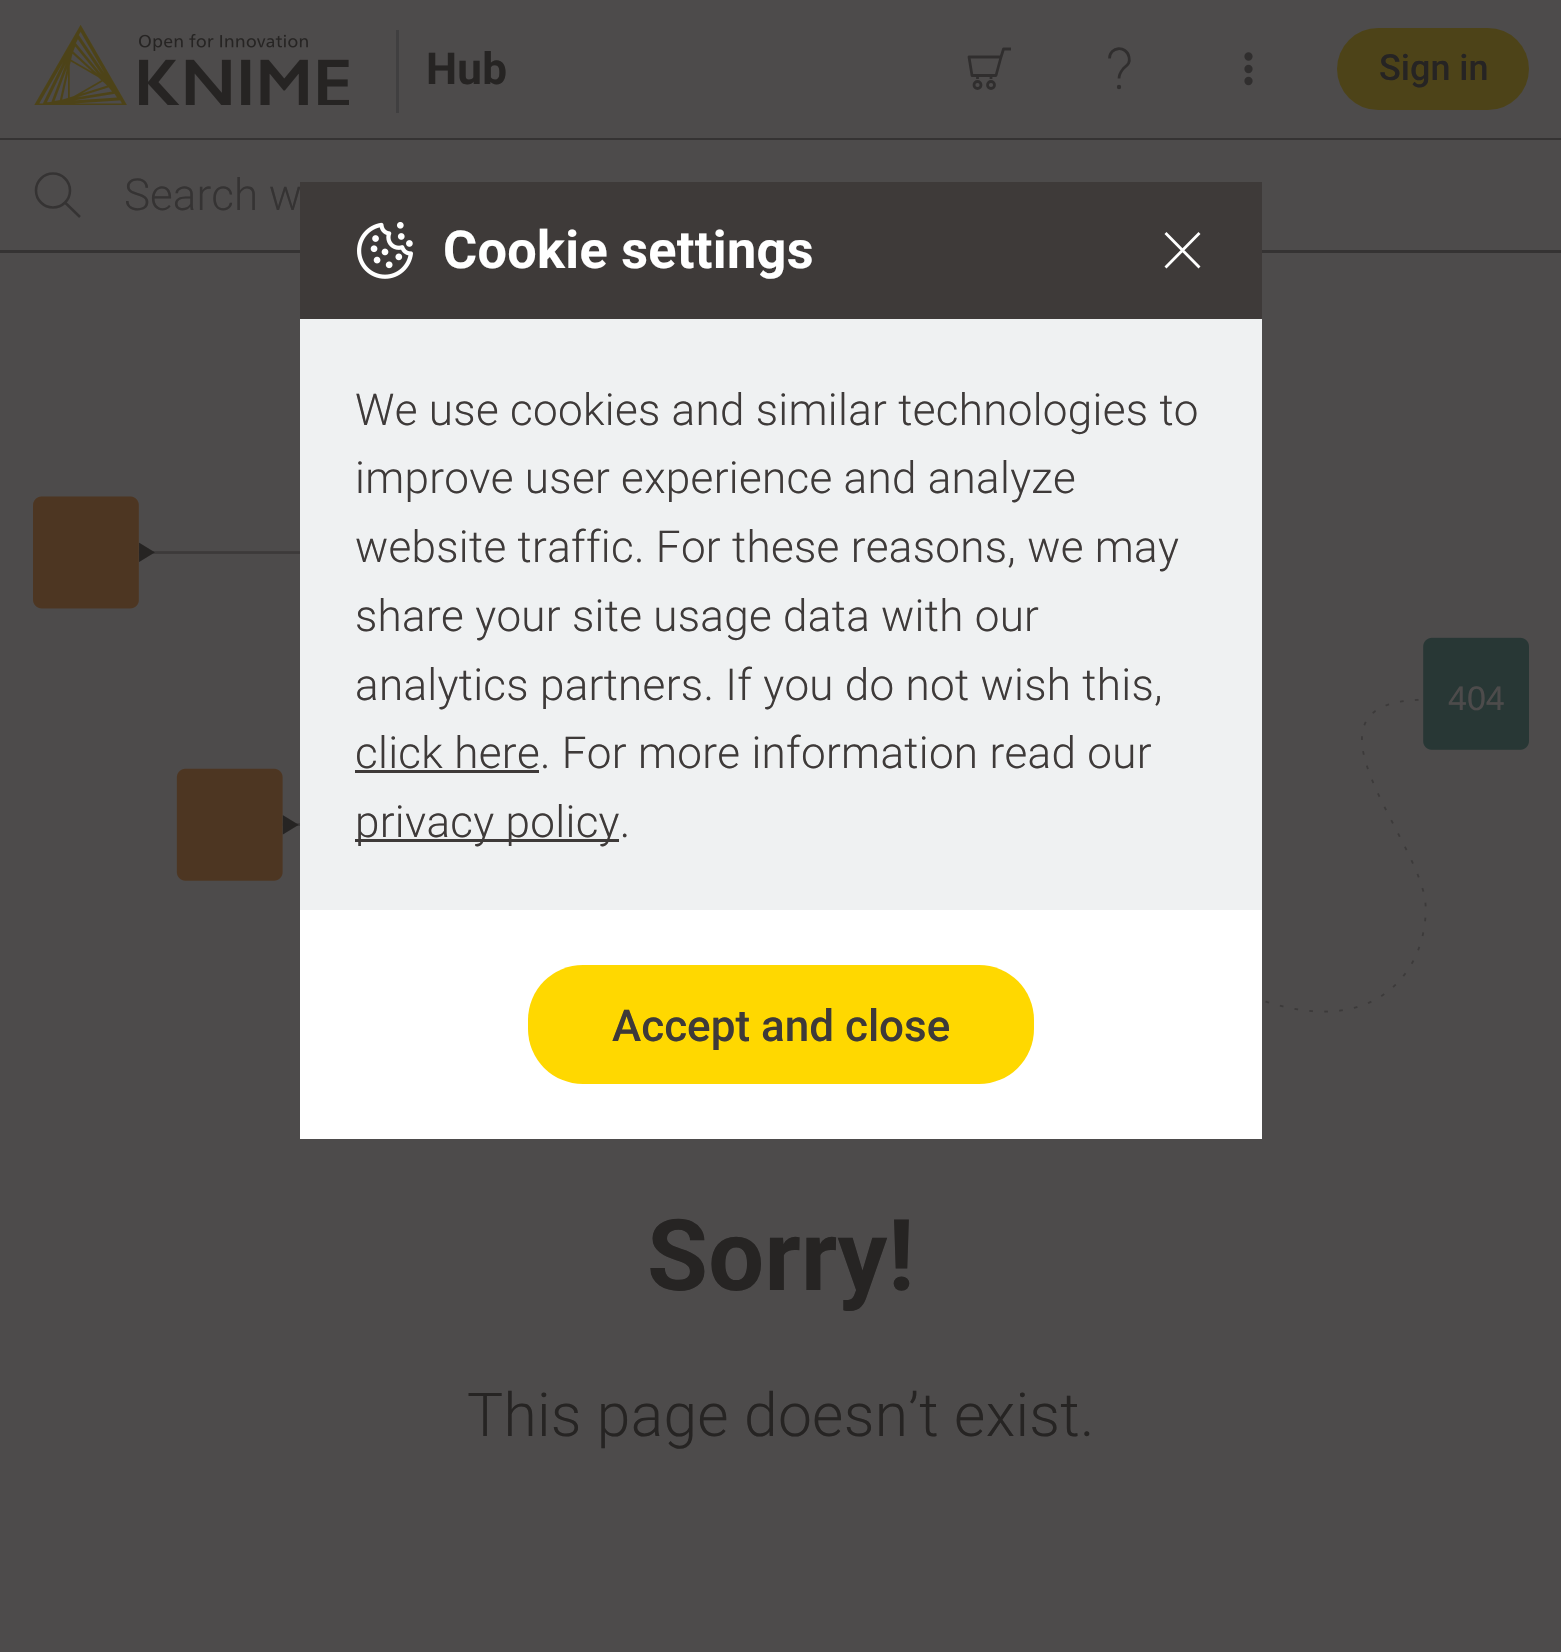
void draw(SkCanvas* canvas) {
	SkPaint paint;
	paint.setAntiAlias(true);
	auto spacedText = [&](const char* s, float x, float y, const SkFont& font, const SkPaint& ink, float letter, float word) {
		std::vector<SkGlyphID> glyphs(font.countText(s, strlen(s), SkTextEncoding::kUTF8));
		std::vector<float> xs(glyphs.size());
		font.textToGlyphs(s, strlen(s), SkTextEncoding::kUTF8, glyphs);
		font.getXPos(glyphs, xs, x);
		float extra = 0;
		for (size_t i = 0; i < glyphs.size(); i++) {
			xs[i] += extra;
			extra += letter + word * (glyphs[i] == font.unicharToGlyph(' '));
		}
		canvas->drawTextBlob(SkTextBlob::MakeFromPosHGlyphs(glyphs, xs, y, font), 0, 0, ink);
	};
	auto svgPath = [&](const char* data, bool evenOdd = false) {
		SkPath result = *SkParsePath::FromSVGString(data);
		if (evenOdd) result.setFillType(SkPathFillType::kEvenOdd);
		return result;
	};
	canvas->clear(0xff4d4b4b);
	canvas->drawImageRect(SkImages::DeferredFromEncodedData(SkData::MakeFromFileName("img1.png")), SkRect::MakeXYWH(34, 25, 315, 80), SkSamplingOptions());
	paint.setColor(0xff403f40);
	canvas->drawRect(SkRect::MakeXYWH(396, 30, 3, 83), paint);
	SkFont f1(fontMgr->matchFamilyStyle("Roboto", SkFontStyle::Bold()), 44);
	f1.setSubpixel(true);
	paint.setColor(0xff262423);
	spacedText("Hub", 426, 84, f1, paint, 0.3, 0);
	paint.setStroke(true);
	paint.setStrokeWidth(2.8);
	paint.setStrokeJoin(SkPaint::kRound_Join);
	paint.setColor(0xff302e2e);
	canvas->drawPath(svgPath("M996 75.5H972L969 57H1001ZM1001 57L1003.5 49H1011M977.5 75.5V79M991 75.5V79"), paint);
	paint.setStrokeJoin(SkPaint::kMiter_Join);
	canvas->drawCircle(977.5, 85, 3.5, paint);
	canvas->drawCircle(991, 85, 3.5, paint);
	paint.setStrokeJoin(SkPaint::kRound_Join);
	canvas->drawPath(svgPath("M1119 78.5C1119 75 1121 71.5 1123 69C1127 65 1130.5 63.5 1129 57C1126.5 45 1109.5 46.5 1109.5 58.5"), paint);
	paint.setStrokeWidth(4.4);
	paint.setStrokeCap(SkPaint::kRound_Cap);
	canvas->drawPath(svgPath("M1119 87H1119"), paint);
	paint.setStrokeWidth(8.3);
	paint.setStrokeJoin(SkPaint::kMiter_Join);
	canvas->drawPath(svgPath("M1248.5 56.5H1248.5M1248.5 69H1248.5M1248.5 81H1248.5"), paint);
	paint.setStroke(false);
	paint.setColor(0xff4d4318);
	canvas->drawRoundRect(SkRect::MakeXYWH(1337, 28, 192, 82), 41, 41, paint);
	SkFont f2(fontMgr->matchFamilyStyle("Roboto", SkFontStyle(500, SkFontStyle::kNormal_Width, SkFontStyle::kUpright_Slant)), 36);
	f2.setSubpixel(true);
	paint.setColor(0xff262423);
	canvas->drawString("Sign in", 1379, 80, f2, paint);
	paint.setColor(0xff353333);
	canvas->drawRect(SkRect::MakeXYWH(0, 138, 1561, 2), paint);
	canvas->drawRect(SkRect::MakeXYWH(0, 250, 1561, 3), paint);
	paint.setStroke(true);
	paint.setStrokeWidth(2.6);
	paint.setStrokeCap(SkPaint::kButt_Cap);
	canvas->drawCircle(53, 190.5, 17, paint);
	paint.setStrokeJoin(SkPaint::kRound_Join);
	canvas->drawPath(svgPath("M65 202.5L80 217"), paint);
	SkFont f3(fontMgr->matchFamilyStyle("Roboto", SkFontStyle(300, SkFontStyle::kNormal_Width, SkFontStyle::kUpright_Slant)), 44);
	f3.setSubpixel(true);
	paint.setStroke(false);
	canvas->drawString("Search w", 124, 210, f3, paint);
	canvas->drawImageRect(SkImages::DeferredFromEncodedData(SkData::MakeFromFileName("img2.png")), SkRect::MakeXYWH(33, 496, 1496, 517), SkSamplingOptions());
	SkFont f4(fontMgr->matchFamilyStyle("Liberation Sans", SkFontStyle::Normal()), 34);
	f4.setSubpixel(true);
	paint.setColor(0xff4d4b4b);
	canvas->drawString("404", 1448, 710, f4, paint);
	SkFont f5(fontMgr->matchFamilyStyle("Roboto", SkFontStyle::Bold()), 99);
	f5.setSubpixel(true);
	paint.setColor(0xff262423);
	spacedText("Sorry!", 647, 1290, f5, paint, 0.3, 0);
	SkFont f6(fontMgr->matchFamilyStyle("Roboto", SkFontStyle(300, SkFontStyle::kNormal_Width, SkFontStyle::kUpright_Slant)), 60.5);
	f6.setSubpixel(true);
	spacedText("This page doesn’t exist.", 467, 1436, f6, paint, 0.3, 0);
	paint.setColor(0xffffffff);
	canvas->drawRect(SkRect::MakeXYWH(300, 910, 962, 229), paint);
	paint.setColor(0xff3e3a39);
	canvas->drawRect(SkRect::MakeXYWH(300, 182, 962, 137), paint);
	canvas->drawImageRect(SkImages::DeferredFromEncodedData(SkData::MakeFromFileName("img3.png")), SkRect::MakeXYWH(357, 222, 56, 57), SkSamplingOptions());
	SkFont f7(fontMgr->matchFamilyStyle("Roboto", SkFontStyle::Bold()), 52.25);
	f7.setSubpixel(true);
	paint.setColor(0xffffffff);
	spacedText("Cookie settings", 443, 268, f7, paint, 0.3, 0);
	paint.setStroke(true);
	paint.setStrokeWidth(2.8);
	canvas->drawPath(svgPath("M1165.5 267.5L1199.5 233M1165.5 233L1199.5 267.5"), paint);
	paint.setStroke(false);
	paint.setColor(0xffeff1f2);
	canvas->drawRect(SkRect::MakeXYWH(300, 319, 962, 591), paint);
	paint.setColor(0xff3e3a39);
	spacedText("We use cookies and similar technologies to", 355, 425, f3, paint, 0.3, 0);
	spacedText("improve user experience and analyze", 355, 493, f3, paint, 0.3, 0);
	spacedText("website traffic. For these reasons, we may", 355, 562, f3, paint, 0.3, 0);
	spacedText("share your site usage data with our", 355, 631, f3, paint, 0.3, 0);
	spacedText("analytics partners. If you do not wish this,", 355, 700, f3, paint, 0.3, 0);
	spacedText("click here. For more information read our", 355, 768, f3, paint, 0.3, 0);
	canvas->drawRect(SkRect::MakeXYWH(355, 770, 184, 3), paint);
	canvas->drawRect(SkRect::MakeXYWH(355, 839, 264, 3), paint);
	spacedText("privacy policy.", 355, 837, f3, paint, 0.3, 0);
	paint.setColor(0xffffd800);
	canvas->drawRoundRect(SkRect::MakeXYWH(528, 965, 506, 119), 55, 55, paint);
	SkFont f8(fontMgr->matchFamilyStyle("Roboto", SkFontStyle(500, SkFontStyle::kNormal_Width, SkFontStyle::kUpright_Slant)), 44);
	f8.setSubpixel(true);
	paint.setColor(0xff3e3a39);
	canvas->drawString("Accept and close", 612, 1041, f8, paint);
}
